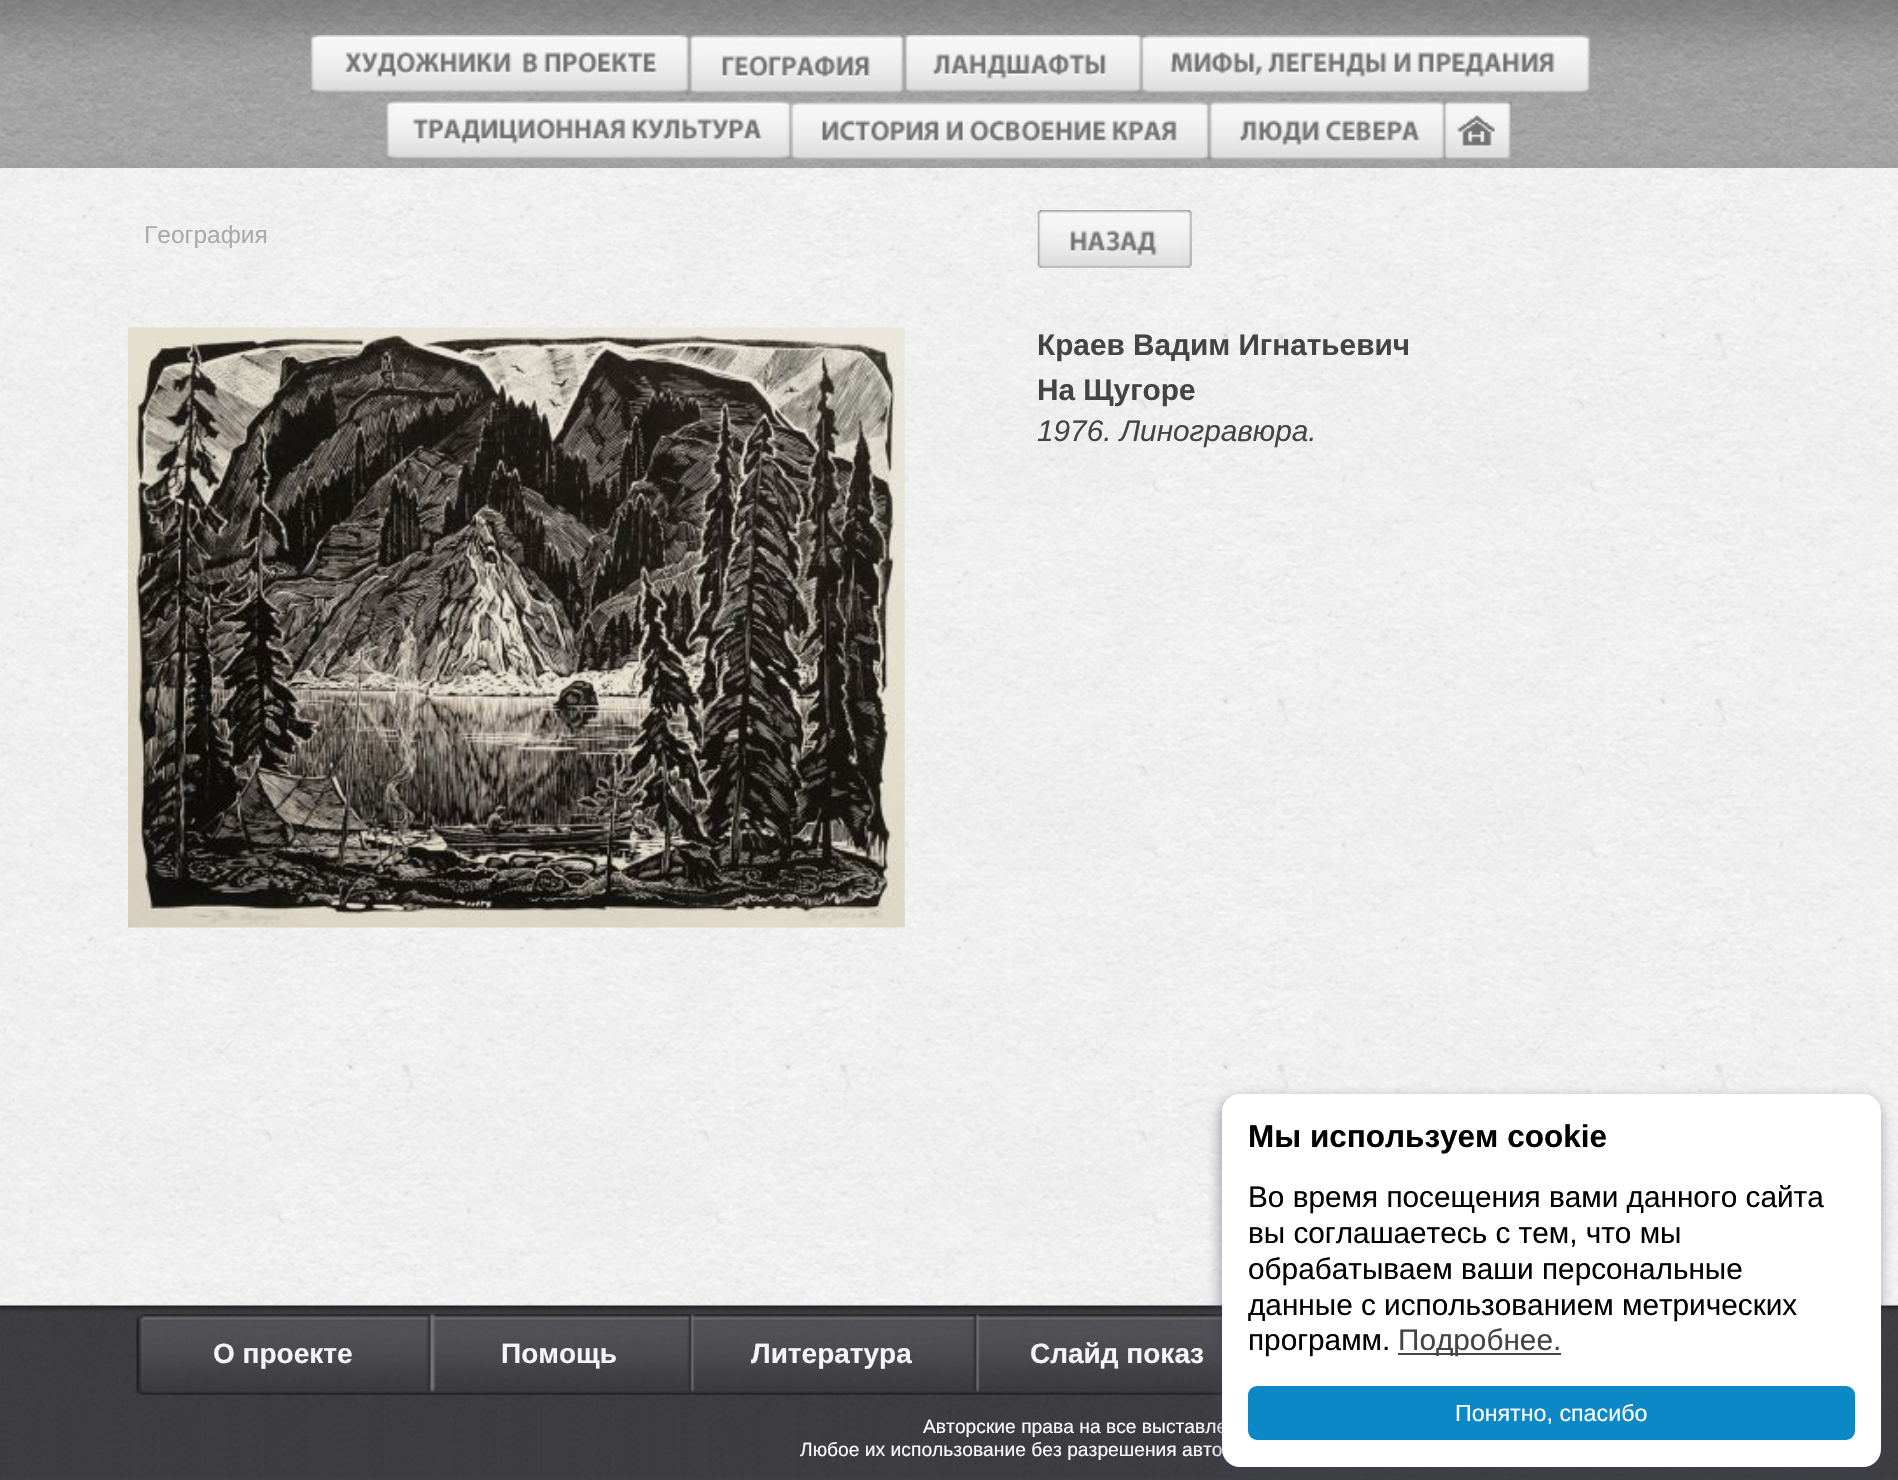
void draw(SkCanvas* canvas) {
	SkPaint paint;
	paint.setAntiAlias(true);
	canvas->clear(0xffffffff);
	canvas->drawImageRect(SkImages::DeferredFromEncodedData(SkData::MakeFromFileName("img1.png")), SkRect::MakeXYWH(0, 168, 1898, 1138), SkSamplingOptions());
	canvas->drawImageRect(SkImages::DeferredFromEncodedData(SkData::MakeFromFileName("img2.png")), SkRect::MakeXYWH(0, 0, 1898, 168), SkSamplingOptions());
	canvas->drawImageRect(SkImages::DeferredFromEncodedData(SkData::MakeFromFileName("img3.png")), SkRect::MakeXYWH(310, 35, 380, 58), SkSamplingOptions());
	canvas->drawImageRect(SkImages::DeferredFromEncodedData(SkData::MakeFromFileName("img4.png")), SkRect::MakeXYWH(689, 35, 216, 58), SkSamplingOptions());
	canvas->drawImageRect(SkImages::DeferredFromEncodedData(SkData::MakeFromFileName("img5.png")), SkRect::MakeXYWH(904, 35, 237, 58), SkSamplingOptions());
	canvas->drawImageRect(SkImages::DeferredFromEncodedData(SkData::MakeFromFileName("img6.png")), SkRect::MakeXYWH(1141, 35, 450, 58), SkSamplingOptions());
	canvas->drawImageRect(SkImages::DeferredFromEncodedData(SkData::MakeFromFileName("img7.png")), SkRect::MakeXYWH(386, 101, 405, 59), SkSamplingOptions());
	canvas->drawImageRect(SkImages::DeferredFromEncodedData(SkData::MakeFromFileName("img8.png")), SkRect::MakeXYWH(791, 101, 419, 59), SkSamplingOptions());
	canvas->drawImageRect(SkImages::DeferredFromEncodedData(SkData::MakeFromFileName("img9.png")), SkRect::MakeXYWH(1209, 101, 235, 59), SkSamplingOptions());
	canvas->drawImageRect(SkImages::DeferredFromEncodedData(SkData::MakeFromFileName("img10.png")), SkRect::MakeXYWH(1443, 101, 69, 59), SkSamplingOptions());
	SkFont f1(fontMgr->matchFamilyStyle("Liberation Sans", SkFontStyle::Normal()), 24.5);
	f1.setSubpixel(true);
	paint.setColor(0xffababab);
	canvas->drawString("География", 144, 243, f1, paint);
	canvas->drawImageRect(SkImages::DeferredFromEncodedData(SkData::MakeFromFileName("img11.png")), SkRect::MakeXYWH(128, 327, 777, 601), SkSamplingOptions());
	canvas->drawImageRect(SkImages::DeferredFromEncodedData(SkData::MakeFromFileName("img12.png")), SkRect::MakeXYWH(1037, 210, 155, 58), SkSamplingOptions());
	SkFont f2(fontMgr->matchFamilyStyle("Liberation Sans", SkFontStyle::Bold()), 29.75);
	f2.setSubpixel(true);
	paint.setColor(0xff444444);
	canvas->drawString("Краев Вадим Игнатьевич", 1037, 355, f2, paint);
	canvas->drawString("На Щугоре", 1037, 400, f2, paint);
	SkFont f3(fontMgr->matchFamilyStyle("Liberation Sans", SkFontStyle::Italic()), 29.75);
	f3.setSubpixel(true);
	canvas->drawString("1976. Линогравюра.", 1037, 441, f3, paint);
	canvas->drawImageRect(SkImages::DeferredFromEncodedData(SkData::MakeFromFileName("img13.png")), SkRect::MakeXYWH(0, 1305, 1898, 175), SkSamplingOptions());
	canvas->drawImageRect(SkImages::DeferredFromEncodedData(SkData::MakeFromFileName("img14.png")), SkRect::MakeXYWH(136, 1314, 1086, 81), SkSamplingOptions());
	SkFont f4(fontMgr->matchFamilyStyle("Liberation Sans", SkFontStyle::Bold()), 28);
	f4.setSubpixel(true);
	paint.setColor(0xfff5f5f8);
	canvas->drawString("О проекте", 213, 1363, f4, paint);
	canvas->drawString("Помощь", 501, 1363, f4, paint);
	canvas->drawString("Литература", 751, 1363, f4, paint);
	canvas->drawString("Слайд показ", 1030, 1363, f4, paint);
	SkFont f5(fontMgr->matchFamilyStyle("Liberation Sans", SkFontStyle::Normal()), 19.25);
	f5.setSubpixel(true);
	paint.setColor(0xffffffff);
	canvas->drawString("Авторские права на все выставле", 923, 1433, f5, paint);
	canvas->drawString("Любое их использование без разрешения авто", 800, 1456, f5, paint);
	paint.setColor(0x7a3d3e5d);
	paint.setMaskFilter(SkMaskFilter::MakeBlur(kNormal_SkBlurStyle, 7));
	canvas->drawRoundRect(SkRect::MakeXYWH(1220, 1099, 660, 373), 18, 18, paint);
	paint.setMaskFilter(nullptr);
	paint.setColor(0xffffffff);
	canvas->drawRoundRect(SkRect::MakeXYWH(1222, 1094, 659, 373), 18, 18, paint);
	SkFont f6(fontMgr->matchFamilyStyle("Liberation Sans", SkFontStyle::Bold()), 31.5);
	f6.setSubpixel(true);
	paint.setColor(0xff000000);
	canvas->drawString("Мы используем cookie", 1248, 1147, f6, paint);
	SkFont f7(fontMgr->matchFamilyStyle("Liberation Sans", SkFontStyle::Normal()), 29.75);
	f7.setSubpixel(true);
	canvas->drawString("Во время посещения вами данного сайта", 1248, 1207, f7, paint);
	canvas->drawString("вы соглашаетесь с тем, что мы", 1248, 1243, f7, paint);
	canvas->drawString("обрабатываем ваши персональные", 1248, 1279, f7, paint);
	canvas->drawString("данные с использованием метрических", 1248, 1315, f7, paint);
	canvas->drawString("программ.", 1248, 1350, f7, paint);
	paint.setColor(0xff444444);
	canvas->drawRect(SkRect::MakeXYWH(1398, 1353, 163, 2), paint);
	canvas->drawString("Подробнее.", 1398, 1350, f7, paint);
	paint.setColor(0xff0d88c7);
	canvas->drawRoundRect(SkRect::MakeXYWH(1248, 1386, 607, 54), 9, 9, paint);
	SkFont f8(fontMgr->matchFamilyStyle("Liberation Sans", SkFontStyle::Normal()), 23.25);
	f8.setSubpixel(true);
	paint.setColor(0xffffffff);
	canvas->drawString("Понятно, спасибо", 1455, 1421, f8, paint);
}
